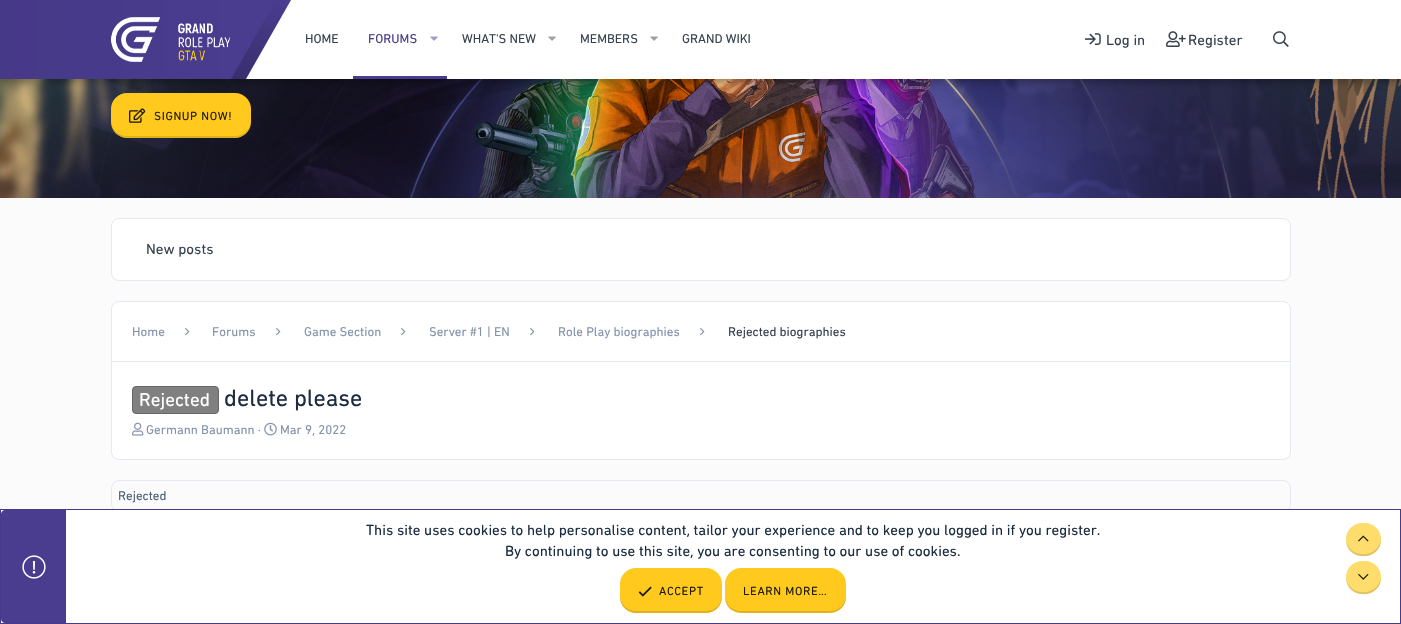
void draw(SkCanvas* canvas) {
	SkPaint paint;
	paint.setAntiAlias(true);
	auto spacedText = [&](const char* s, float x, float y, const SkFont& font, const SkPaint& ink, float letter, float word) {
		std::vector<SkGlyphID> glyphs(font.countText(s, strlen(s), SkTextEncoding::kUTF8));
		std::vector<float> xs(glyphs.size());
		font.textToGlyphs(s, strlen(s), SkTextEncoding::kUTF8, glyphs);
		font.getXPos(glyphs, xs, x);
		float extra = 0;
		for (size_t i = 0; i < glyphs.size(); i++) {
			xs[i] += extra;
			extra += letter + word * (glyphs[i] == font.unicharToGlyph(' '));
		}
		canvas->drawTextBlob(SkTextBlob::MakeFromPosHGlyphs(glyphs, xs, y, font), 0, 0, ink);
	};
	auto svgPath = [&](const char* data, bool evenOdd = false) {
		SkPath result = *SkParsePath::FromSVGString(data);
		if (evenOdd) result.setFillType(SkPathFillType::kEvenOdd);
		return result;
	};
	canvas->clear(0xfffbfbfc);
	canvas->drawImageRect(SkImages::DeferredFromEncodedData(SkData::MakeFromFileName("img7.png")), SkRect::MakeXYWH(0, 79, 1401, 119), SkSamplingOptions());
	paint.setColor(0xffffca1d);
	canvas->drawRoundRect(SkRect::MakeXYWH(111, 93, 140, 45), 16, 16, paint);
	paint.setColor(0x4d000000);
	paint.setMaskFilter(SkMaskFilter::MakeBlur(kNormal_SkBlurStyle, 4));
	canvas->drawRect(SkRect::MakeXYWH(-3, -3, 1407, 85), paint);
	paint.setMaskFilter(nullptr);
	paint.setColor(0xffffffff);
	canvas->drawRect(SkRect::MakeXYWH(232, 0, 1169, 79), paint);
	{
		const SkColor colors[] = {0xff28214c, 0xff4a3c8f};
		const float stops[] = {0, 1};
		const SkPoint ends[] = {{-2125, 40}, {255, 39}};
		paint.setShader(SkGradientShader::MakeLinear(ends, colors, stops, 2, SkTileMode::kClamp));
		paint.setAlpha(255);
	}
	canvas->drawPath(svgPath("M-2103 0H277L232 79H-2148Z"), paint);
	{
		const SkColor colors[] = {0xff28214c, 0xff4a3c8f};
		const float stops[] = {0, 1};
		const SkPoint ends[] = {{193, 158}, {284, 0}};
		paint.setShader(SkGradientShader::MakeLinear(ends, colors, stops, 2, SkTileMode::kClamp));
		paint.setAlpha(255);
	}
	canvas->drawPath(svgPath("M276 0H291L246 79H231Z"), paint);
	canvas->drawImageRect(SkImages::DeferredFromEncodedData(SkData::MakeFromFileName("img1.png")), SkRect::MakeXYWH(111, 17, 119, 45), SkSamplingOptions());
	SkFont f1(fontMgr->matchFamilyStyle("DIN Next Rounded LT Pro", SkFontStyle::Normal()), 13);
	f1.setSubpixel(true);
	paint.setShader(nullptr);
	paint.setColor(0xff374250);
	canvas->drawString("HOME", 305, 43, f1, paint);
	paint.setColor(0xff493b8d);
	canvas->drawRect(SkRect::MakeXYWH(353, 76, 94, 3), paint);
	canvas->drawString("FORUMS", 368, 43, f1, paint);
	canvas->drawImageRect(SkImages::DeferredFromEncodedData(SkData::MakeFromFileName("img2.png")), SkRect::MakeXYWH(430, 36, 8, 5), SkSamplingOptions());
	paint.setColor(0xff374250);
	canvas->drawString("WHAT'S NEW", 462, 43, f1, paint);
	canvas->drawImageRect(SkImages::DeferredFromEncodedData(SkData::MakeFromFileName("img3.png")), SkRect::MakeXYWH(548, 36, 8, 5), SkSamplingOptions());
	canvas->drawString("MEMBERS", 580, 43, f1, paint);
	canvas->drawImageRect(SkImages::DeferredFromEncodedData(SkData::MakeFromFileName("img3.png")), SkRect::MakeXYWH(650, 36, 8, 5), SkSamplingOptions());
	canvas->drawString("GRAND WIKI", 682, 43, f1, paint);
	canvas->drawImageRect(SkImages::DeferredFromEncodedData(SkData::MakeFromFileName("img4.png")), SkRect::MakeXYWH(1085, 33, 16, 12), SkSamplingOptions());
	SkFont f2(fontMgr->matchFamilyStyle("DIN Next Rounded LT Pro", SkFontStyle::Normal()), 15);
	f2.setSubpixel(true);
	canvas->drawString("Log in", 1106, 45, f2, paint);
	canvas->drawImageRect(SkImages::DeferredFromEncodedData(SkData::MakeFromFileName("img5.png")), SkRect::MakeXYWH(1166, 31, 20, 16), SkSamplingOptions());
	canvas->drawString("Register", 1188, 45, f2, paint);
	canvas->drawImageRect(SkImages::DeferredFromEncodedData(SkData::MakeFromFileName("img6.png")), SkRect::MakeXYWH(1273, 31, 16, 16), SkSamplingOptions());
	paint.setColor(0x1f000000);
	canvas->drawPath(svgPath("M111 120C111 141 129 138 145 138H217C233 138 251 141 251 120C251 129 244 136 235 136H127C118 136 111 129 111 120Z"), paint);
	canvas->drawImageRect(SkImages::DeferredFromEncodedData(SkData::MakeFromFileName("img8.png")), SkRect::MakeXYWH(129, 108, 17, 15), SkSamplingOptions());
	SkFont f3(fontMgr->matchFamilyStyle("DIN Next Rounded LT Pro", SkFontStyle::Normal()), 12);
	f3.setSubpixel(true);
	paint.setColor(0xff211b04);
	spacedText("SIGNUP NOW!", 154, 120, f3, paint, 0.6, 0);
	paint.setColor(0xffffffff);
	canvas->drawRoundRect(SkRect::MakeXYWH(111.5, 218.5, 1179, 62), 7.5, 7.5, paint);
	paint.setStroke(true);
	paint.setStrokeWidth(1);
	paint.setColor(0xffe5e9f2);
	canvas->drawRoundRect(SkRect::MakeXYWH(111.5, 218.5, 1179, 62), 7.5, 7.5, paint);
	paint.setStroke(false);
	paint.setColor(0xff374250);
	canvas->drawString("New posts", 146, 254, f2, paint);
	paint.setColor(0xffffffff);
	canvas->drawRoundRect(SkRect::MakeXYWH(111.5, 301.5, 1179, 158), 7.5, 7.5, paint);
	paint.setStroke(true);
	paint.setColor(0xffe5e9f2);
	canvas->drawRoundRect(SkRect::MakeXYWH(111.5, 301.5, 1179, 158), 7.5, 7.5, paint);
	paint.setStroke(false);
	canvas->drawRect(SkRect::MakeXYWH(112, 361, 1178, 1), paint);
	paint.setColor(0xff8494ac);
	canvas->drawString("Home", 132, 336, f1, paint);
	canvas->drawImageRect(SkImages::DeferredFromEncodedData(SkData::MakeFromFileName("img9.png")), SkRect::MakeXYWH(185, 328, 5, 8), SkSamplingOptions());
	canvas->drawString("Forums", 212, 336, f1, paint);
	canvas->drawImageRect(SkImages::DeferredFromEncodedData(SkData::MakeFromFileName("img9.png")), SkRect::MakeXYWH(276, 328, 5, 8), SkSamplingOptions());
	canvas->drawString("Game Section", 304, 336, f1, paint);
	canvas->drawImageRect(SkImages::DeferredFromEncodedData(SkData::MakeFromFileName("img9.png")), SkRect::MakeXYWH(401, 328, 5, 8), SkSamplingOptions());
	canvas->drawString("Server #1 | EN", 429, 336, f1, paint);
	canvas->drawImageRect(SkImages::DeferredFromEncodedData(SkData::MakeFromFileName("img9.png")), SkRect::MakeXYWH(530, 328, 5, 8), SkSamplingOptions());
	canvas->drawString("Role Play biographies", 558, 336, f1, paint);
	canvas->drawImageRect(SkImages::DeferredFromEncodedData(SkData::MakeFromFileName("img9.png")), SkRect::MakeXYWH(700, 328, 5, 8), SkSamplingOptions());
	paint.setColor(0xff374250);
	canvas->drawString("Rejected biographies", 728, 336, f1, paint);
	paint.setColor(0xff808080);
	canvas->drawRoundRect(SkRect::MakeXYWH(132.5, 386.5, 86, 27), 3.5, 3.5, paint);
	paint.setStroke(true);
	paint.setColor(0xff676767);
	canvas->drawRoundRect(SkRect::MakeXYWH(132.5, 386.5, 86, 27), 3.5, 3.5, paint);
	SkFont f4(fontMgr->matchFamilyStyle("DIN Next Rounded LT Pro", SkFontStyle::Normal()), 19);
	f4.setSubpixel(true);
	paint.setStroke(false);
	paint.setColor(0xffffffff);
	canvas->drawString("Rejected", 139, 406, f4, paint);
	SkFont f5(fontMgr->matchFamilyStyle("DIN Next Rounded LT Pro", SkFontStyle::Normal()), 24);
	f5.setSubpixel(true);
	paint.setColor(0xff1c2d41);
	canvas->drawString("delete please", 224, 406, f5, paint);
	canvas->drawImageRect(SkImages::DeferredFromEncodedData(SkData::MakeFromFileName("img10.png")), SkRect::MakeXYWH(132, 422, 12, 14), SkSamplingOptions());
	paint.setColor(0xff8494ac);
	canvas->drawString("Germann Baumann ·", 146, 434, f1, paint);
	canvas->drawImageRect(SkImages::DeferredFromEncodedData(SkData::MakeFromFileName("img11.png")), SkRect::MakeXYWH(264, 422, 13, 14), SkSamplingOptions());
	canvas->drawString("Mar 9, 2022", 280, 434, f1, paint);
	paint.setStroke(true);
	paint.setColor(0xffe5e9f2);
	canvas->drawRoundRect(SkRect::MakeXYWH(111.5, 480.5, 1179, 31), 7.5, 7.5, paint);
	paint.setStroke(false);
	paint.setColor(0xff506177);
	canvas->drawString("Rejected", 118, 500, f1, paint);
	paint.setColor(0xffffffff);
	canvas->drawRect(SkRect::MakeXYWH(0.5, 509.5, 1400, 114), paint);
	paint.setStroke(true);
	paint.setColor(0xff473a89);
	canvas->drawRect(SkRect::MakeXYWH(0.5, 509.5, 1400, 114), paint);
	paint.setStroke(false);
	paint.setColor(0xff4a3c8f);
	canvas->drawPath(svgPath("M5 510H66V623H5C3 623 1 621 1 619V514C1 512 3 510 5 510Z"), paint);
	canvas->drawImageRect(SkImages::DeferredFromEncodedData(SkData::MakeFromFileName("img12.png")), SkRect::MakeXYWH(22, 555, 24, 24), SkSamplingOptions());
	paint.setColor(0xff1c2d41);
	canvas->drawString("This site uses cookies to help personalise content, tailor your experience and to keep you logged in if you register.", 366, 535, f2, paint);
	canvas->drawString("By continuing to use this site, you are consenting to our use of cookies.", 505, 556, f2, paint);
	paint.setColor(0xffffca1d);
	canvas->drawRoundRect(SkRect::MakeXYWH(620, 568, 102, 45), 16, 16, paint);
	paint.setColor(0x1f000000);
	canvas->drawPath(svgPath("M620 595V597C620 606 627 613 636 613H706C715 613 722 606 722 597V595C722 604 715 611 706 611H636C627 611 620 604 620 595Z"), paint);
	canvas->drawImageRect(SkImages::DeferredFromEncodedData(SkData::MakeFromFileName("img13.png")), SkRect::MakeXYWH(638, 586, 14, 11), SkSamplingOptions());
	paint.setColor(0xff211b04);
	spacedText("ACCEPT", 659, 595, f3, paint, 0.6, 0);
	paint.setColor(0xffffca1d);
	canvas->drawRoundRect(SkRect::MakeXYWH(725, 568, 121, 45), 16, 16, paint);
	paint.setColor(0x1f000000);
	canvas->drawPath(svgPath("M725 595C725 615 741 613 756 613H815C830 613 846 615 846 595C846 604 839 611 830 611H741C732 611 725 604 725 595Z"), paint);
	paint.setColor(0xff211b04);
	spacedText("LEARN MORE…", 743, 595, f3, paint, 0.6, 0);
	paint.setColor(0xffffdd6c);
	canvas->drawRoundRect(SkRect::MakeXYWH(1346, 523, 35, 33), 16, 16, paint);
	paint.setColor(0x1f000000);
	canvas->drawPath(svgPath("M1346 539.5C1346 562 1382 562 1381 538.5C1379.5 558.5 1348.5 560 1346 539.5Z"), paint);
	canvas->drawImageRect(SkImages::DeferredFromEncodedData(SkData::MakeFromFileName("img14.png")), SkRect::MakeXYWH(1358, 535, 11, 7), SkSamplingOptions());
	paint.setColor(0xffffdd6c);
	canvas->drawRoundRect(SkRect::MakeXYWH(1346, 561, 35, 33), 16, 16, paint);
	paint.setColor(0x1f000000);
	canvas->drawPath(svgPath("M1346 577.5C1346 600 1382 600 1381 576.5C1379.5 596.5 1348.5 598 1346 577.5Z"), paint);
	canvas->drawImageRect(SkImages::DeferredFromEncodedData(SkData::MakeFromFileName("img15.png")), SkRect::MakeXYWH(1358, 573, 11, 7), SkSamplingOptions());
}
